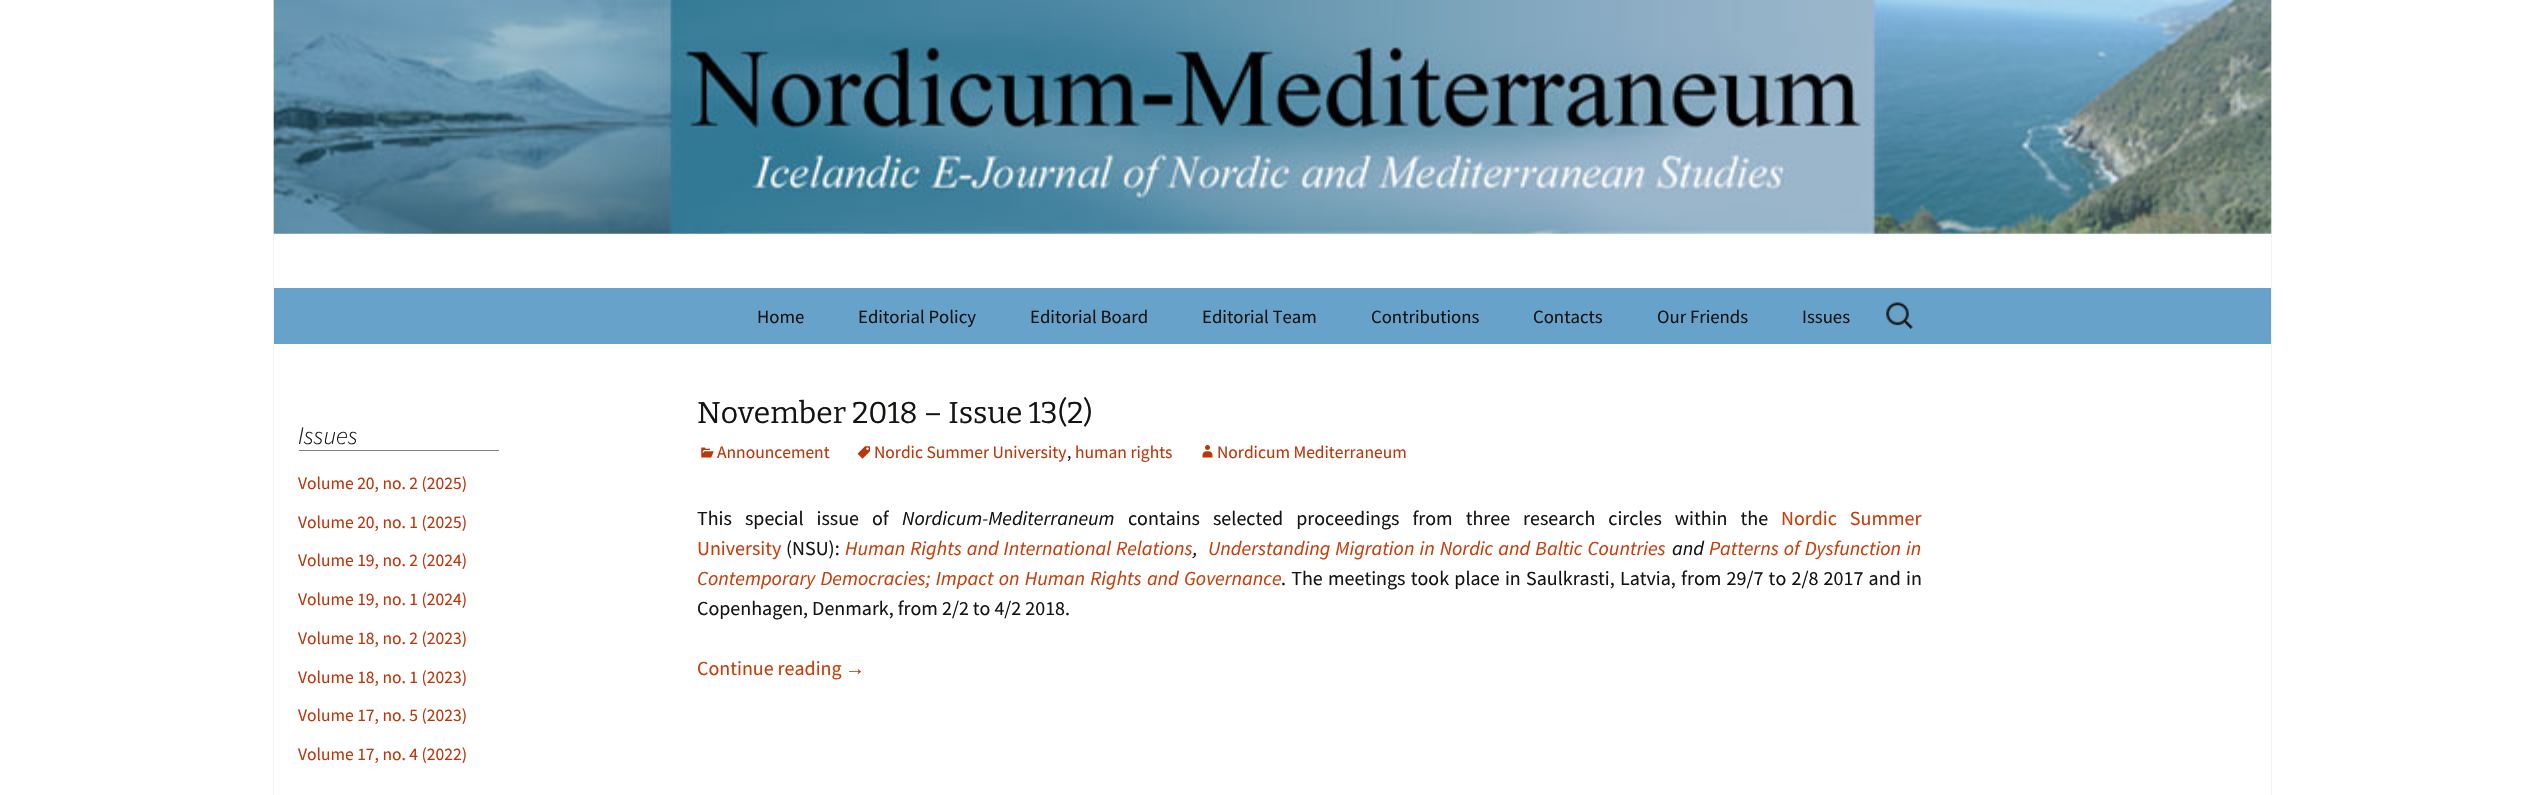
void draw(SkCanvas* canvas) {
	SkPaint paint;
	paint.setAntiAlias(true);
	auto spacedText = [&](const char* s, float x, float y, const SkFont& font, const SkPaint& ink, float letter, float word) {
		std::vector<SkGlyphID> glyphs(font.countText(s, strlen(s), SkTextEncoding::kUTF8));
		std::vector<float> xs(glyphs.size());
		font.textToGlyphs(s, strlen(s), SkTextEncoding::kUTF8, glyphs);
		font.getXPos(glyphs, xs, x);
		float extra = 0;
		for (size_t i = 0; i < glyphs.size(); i++) {
			xs[i] += extra;
			extra += letter + word * (glyphs[i] == font.unicharToGlyph(' '));
		}
		canvas->drawTextBlob(SkTextBlob::MakeFromPosHGlyphs(glyphs, xs, y, font), 0, 0, ink);
	};
	canvas->clear(0xffffffff);
	paint.setColor(0xfff2f2f2);
	canvas->drawRect(SkRect::MakeXYWH(2271, 0, 1, 795), paint);
	canvas->drawRect(SkRect::MakeXYWH(273, 0, 1, 795), paint);
	canvas->drawImageRect(SkImages::DeferredFromEncodedData(SkData::MakeFromFileName("img1.png")), SkRect::MakeXYWH(273, 0, 1999, 234), SkSamplingOptions());
	paint.setColor(0xff66a2c9);
	canvas->drawRect(SkRect::MakeXYWH(274, 288, 1997, 56), paint);
	SkFont f1(fontMgr->matchFamilyStyle("Source Sans Pro", SkFontStyle::Normal()), 18.75);
	f1.setSubpixel(true);
	paint.setColor(0xff141412);
	canvas->drawString("Home", 757, 323, f1, paint);
	canvas->drawString("Editorial Policy", 858, 323, f1, paint);
	canvas->drawString("Editorial Board", 1030, 323, f1, paint);
	canvas->drawString("Editorial Team", 1202, 323, f1, paint);
	canvas->drawString("Contributions", 1371, 323, f1, paint);
	canvas->drawString("Contacts", 1533, 323, f1, paint);
	canvas->drawString("Our Friends", 1657, 323, f1, paint);
	canvas->drawString("Issues", 1802, 323, f1, paint);
	canvas->drawImageRect(SkImages::DeferredFromEncodedData(SkData::MakeFromFileName("img2.png")), SkRect::MakeXYWH(1886, 302, 27, 27), SkSamplingOptions());
	paint.setColor(0xff808080);
	canvas->drawRect(SkRect::MakeXYWH(299, 450, 200, 1), paint);
	SkFont f2(fontMgr->matchFamilyStyle("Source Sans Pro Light", SkFontStyle(300, SkFontStyle::kNormal_Width, SkFontStyle::kItalic_Slant)), 25);
	f2.setSubpixel(true);
	paint.setColor(0xff141412);
	canvas->drawString("Issues", 298, 444, f2, paint);
	SkFont f3(fontMgr->matchFamilyStyle("Source Sans Pro", SkFontStyle::Normal()), 17.5);
	f3.setSubpixel(true);
	paint.setColor(0xffbc360a);
	canvas->drawString("Volume 20, no. 2 (2025)", 298, 489, f3, paint);
	canvas->drawString("Volume 20, no. 1 (2025)", 298, 528, f3, paint);
	canvas->drawString("Volume 19, no. 2 (2024)", 298, 566, f3, paint);
	canvas->drawString("Volume 19, no. 1 (2024)", 298, 605, f3, paint);
	canvas->drawString("Volume 18, no. 2 (2023)", 298, 644, f3, paint);
	canvas->drawString("Volume 18, no. 1 (2023)", 298, 683, f3, paint);
	canvas->drawString("Volume 17, no. 5 (2023)", 298, 721, f3, paint);
	canvas->drawString("Volume 17, no. 4 (2022)", 298, 760, f3, paint);
	SkFont f4(fontMgr->matchFamilyStyle("Bitter", SkFontStyle(100, SkFontStyle::kNormal_Width, SkFontStyle::kUpright_Slant)), 30);
	f4.setSubpixel(true);
	paint.setColor(0xff141412);
	canvas->drawString("November 2018 – Issue 13(2)", 697, 423, f4, paint);
	canvas->drawImageRect(SkImages::DeferredFromEncodedData(SkData::MakeFromFileName("img3.png")), SkRect::MakeXYWH(701, 447, 13, 11), SkSamplingOptions());
	paint.setColor(0xffbc360a);
	canvas->drawString("Announcement", 717, 458, f3, paint);
	canvas->drawImageRect(SkImages::DeferredFromEncodedData(SkData::MakeFromFileName("img4.png")), SkRect::MakeXYWH(857, 446, 13, 13), SkSamplingOptions());
	canvas->drawString("Nordic Summer University", 874, 458, f3, paint);
	paint.setColor(0xff141412);
	canvas->drawString(",", 1067, 458, f3, paint);
	paint.setColor(0xffbc360a);
	canvas->drawString("human rights", 1075, 458, f3, paint);
	canvas->drawImageRect(SkImages::DeferredFromEncodedData(SkData::MakeFromFileName("img5.png")), SkRect::MakeXYWH(1202, 445, 11, 13), SkSamplingOptions());
	canvas->drawString("Nordicum Mediterraneum", 1217, 458, f3, paint);
	SkFont f5(fontMgr->matchFamilyStyle("Source Sans Pro", SkFontStyle::Normal()), 20);
	f5.setSubpixel(true);
	paint.setColor(0xff141412);
	spacedText("This special issue of", 697, 525, f5, paint, 0, 9);
	SkFont f6(fontMgr->matchFamilyStyle("Source Sans Pro", SkFontStyle::Italic()), 20);
	f6.setSubpixel(true);
	canvas->drawString("Nordicum-Mediterraneum", 902, 525, f6, paint);
	spacedText("contains selected proceedings from three research circles within the", 1128, 525, f5, paint, 0, 9);
	paint.setColor(0xffca3c08);
	spacedText("Nordic Summer", 1781, 525, f5, paint, 0, 9);
	canvas->drawString("University", 697, 555, f5, paint);
	paint.setColor(0xff141412);
	canvas->drawString("(NSU):", 786, 555, f5, paint);
	paint.setColor(0xffca3c08);
	spacedText("Human Rights and International Relations", 845, 555, f6, paint, 0, 1);
	paint.setColor(0xff141412);
	canvas->drawString(",", 1193, 555, f6, paint);
	paint.setColor(0xffca3c08);
	spacedText("Understanding Migration in Nordic and Baltic Countries", 1208, 555, f6, paint, 0, 1);
	paint.setColor(0xff141412);
	canvas->drawString("and", 1672, 555, f6, paint);
	paint.setColor(0xffca3c08);
	spacedText("Patterns of Dysfunction in", 1709, 555, f6, paint, 0, 1);
	spacedText("Contemporary Democracies; Impact on Human Rights and Governance", 697, 585, f6, paint, 0, 1.25);
	paint.setColor(0xff141412);
	spacedText(". The meetings took place in Saulkrasti, Latvia, from 29/7 to 2/8 2017 and in", 1281, 585, f5, paint, 0, 1.25);
	canvas->drawString("Copenhagen, Denmark, from 2/2 to 4/2 2018.", 697, 615, f5, paint);
	paint.setColor(0xffca3c08);
	canvas->drawString("Continue reading", 697, 675, f5, paint);
	SkFont f7(fontMgr->matchFamilyStyle("Liberation Sans", SkFontStyle::Normal()), 20);
	f7.setSubpixel(true);
	canvas->drawString("→", 845, 675, f7, paint);
}
